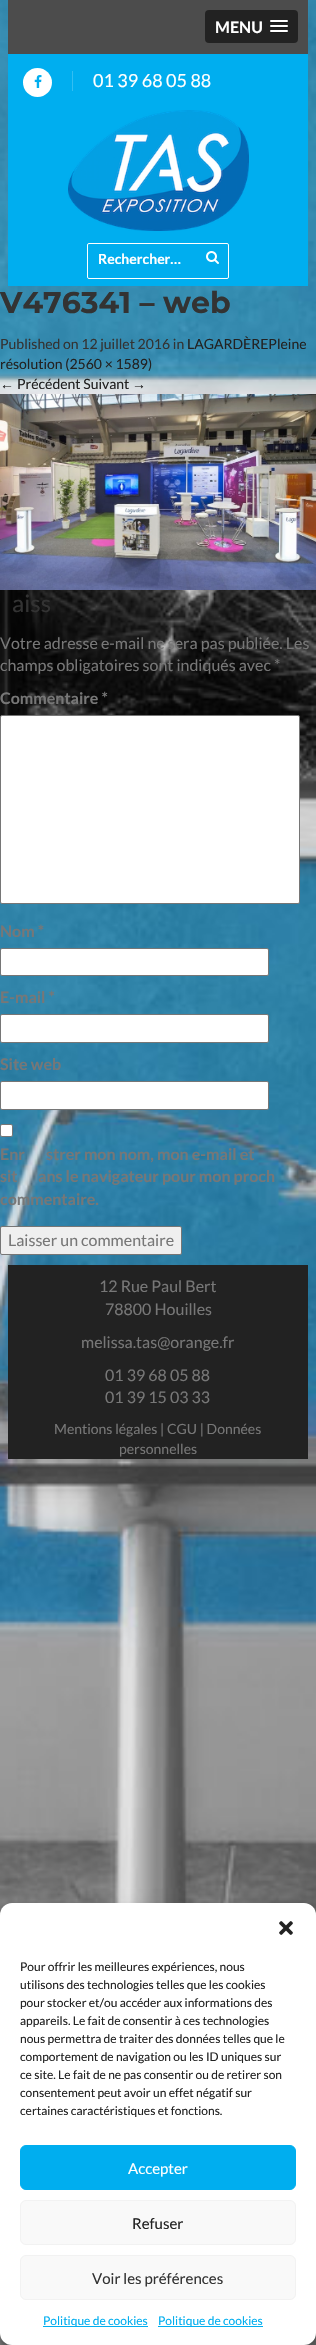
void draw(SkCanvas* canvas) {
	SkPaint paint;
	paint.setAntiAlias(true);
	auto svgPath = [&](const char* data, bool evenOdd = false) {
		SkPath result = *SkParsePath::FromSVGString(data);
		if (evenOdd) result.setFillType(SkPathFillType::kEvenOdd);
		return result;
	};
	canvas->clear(0xffffffff);
	canvas->drawImageRect(SkImages::DeferredFromEncodedData(SkData::MakeFromFileName("img1.png")), SkRect::MakeXYWH(0, 0, 316, 2345), SkSamplingOptions());
	paint.setColor(0xff4c4c4c);
	canvas->drawRect(SkRect::MakeXYWH(8, 0, 300, 54), paint);
	paint.setColor(0xff222222);
	canvas->drawRoundRect(SkRect::MakeXYWH(205, 10, 93, 33), 4, 4, paint);
	SkFont f1(fontMgr->matchFamilyStyle("Lato", SkFontStyle::Bold()), 16);
	f1.setSubpixel(true);
	paint.setColor(0xffffffff);
	canvas->drawString("MENU", 215, 33, f1, paint);
	paint.setColor(0xff1a1a1a);
	canvas->drawPath(svgPath("M270 21.5C269 23.5 273.5 23 273.5 23H284.5C284.5 23 289 23.5 288 21.5C287 22.5 280.5 22 279 22C277.5 22 271 22.5 270 21.5Z"), paint);
	paint.setColor(0xffffffff);
	canvas->drawRoundRect(SkRect::MakeXYWH(270, 20, 18, 2), 1, 1, paint);
	paint.setColor(0xff1a1a1a);
	canvas->drawPath(svgPath("M270 26.5C269 28.5 273.5 28 273.5 28H284.5C284.5 28 289 28.5 288 26.5C287 27.5 280.5 27 279 27C277.5 27 271 27.5 270 26.5Z"), paint);
	paint.setColor(0xffffffff);
	canvas->drawRoundRect(SkRect::MakeXYWH(270, 25, 18, 2), 1, 1, paint);
	paint.setColor(0xff1a1a1a);
	canvas->drawPath(svgPath("M270 31.5C269 33.5 273.5 33 273.5 33H284.5C284.5 33 289 33.5 288 31.5C287 32.5 280.5 32 279 32C277.5 32 271 32.5 270 31.5Z"), paint);
	paint.setColor(0xffffffff);
	canvas->drawRoundRect(SkRect::MakeXYWH(270, 30, 18, 2), 1, 1, paint);
	paint.setColor(0xff00aeef);
	canvas->drawRect(SkRect::MakeXYWH(8, 54, 300, 232), paint);
	paint.setColor(0xffffffff);
	canvas->drawCircle(37.5, 82.5, 14.5, paint);
	canvas->drawImageRect(SkImages::DeferredFromEncodedData(SkData::MakeFromFileName("img2.png")), SkRect::MakeXYWH(34, 75, 8, 13), SkSamplingOptions());
	paint.setColor(0xff33bef2);
	canvas->drawRect(SkRect::MakeXYWH(72, 71, 1, 20), paint);
	SkFont f2(fontMgr->matchFamilyStyle("Lato", SkFontStyle::Normal()), 18);
	f2.setSubpixel(true);
	paint.setColor(0xffffffff);
	canvas->drawString("01 39 68 05 88", 93, 87, f2, paint);
	canvas->drawImageRect(SkImages::DeferredFromEncodedData(SkData::MakeFromFileName("img3.png")), SkRect::MakeXYWH(68, 110, 181, 121), SkSamplingOptions());
	paint.setStroke(true);
	paint.setStrokeWidth(1);
	canvas->drawRoundRect(SkRect::MakeXYWH(87.5, 243.5, 141, 35), 1.5, 1.5, paint);
	SkFont f3(fontMgr->matchFamilyStyle("Lato", SkFontStyle::Bold()), 14);
	f3.setSubpixel(true);
	paint.setStroke(false);
	canvas->drawString("Rechercher…", 98, 264, f3, paint);
	canvas->drawImageRect(SkImages::DeferredFromEncodedData(SkData::MakeFromFileName("img4.png")), SkRect::MakeXYWH(206, 251, 13, 13), SkSamplingOptions());
	SkFont f4(fontMgr->matchFamilyStyle("Montserrat", SkFontStyle::Bold()), 30);
	f4.setSubpixel(true);
	paint.setColor(0xff333333);
	canvas->drawString("V476341 – web", 0, 313, f4, paint);
	SkFont f5(fontMgr->matchFamilyStyle("Lato", SkFontStyle::Normal()), 14);
	f5.setSubpixel(true);
	canvas->drawString("Published on 12 juillet 2016 in", 0, 349, f5, paint);
	paint.setColor(0xff222222);
	canvas->drawString("LAGARDÈREPleine", 187, 349, f5, paint);
	canvas->drawString("résolution (2560 × 1589)", 0, 369, f5, paint);
	SkFont f6(fontMgr->matchFamilyStyle("Liberation Sans", SkFontStyle::Normal()), 14);
	f6.setSubpixel(true);
	canvas->drawString("←", 0, 389, f6, paint);
	canvas->drawString("Précédent Suivant", 17, 389, f5, paint);
	canvas->drawString("→", 132, 389, f6, paint);
	canvas->drawImageRect(SkImages::DeferredFromEncodedData(SkData::MakeFromFileName("img5.png")), SkRect::MakeXYWH(0, 394, 316, 196), SkSamplingOptions());
	SkFont f7(fontMgr->matchFamilyStyle("Lato", SkFontStyle::Normal()), 24);
	f7.setSubpixel(true);
	paint.setColor(0xff333333);
	canvas->drawString("aiss", 12, 612, f7, paint);
	SkFont f8(fontMgr->matchFamilyStyle("Lato", SkFontStyle::Normal()), 16);
	f8.setSubpixel(true);
	paint.setColor(0xff777777);
	canvas->drawString("Votre adresse e-mail ne sera pas publiée. Les", 0, 649, f8, paint);
	canvas->drawString("champs obligatoires sont indiqués avec *", 0, 671, f8, paint);
	canvas->drawString("Commentaire *", 0, 704, f1, paint);
	paint.setColor(0xffffffff);
	canvas->drawRoundRect(SkRect::MakeXYWH(0.5, 715.5, 299, 188), 1.5, 1.5, paint);
	paint.setStroke(true);
	paint.setColor(0xff767676);
	canvas->drawRoundRect(SkRect::MakeXYWH(0.5, 715.5, 299, 188), 1.5, 1.5, paint);
	paint.setStroke(false);
	paint.setColor(0xff777777);
	canvas->drawString("Nom *", 0, 937, f1, paint);
	paint.setColor(0xffffffff);
	canvas->drawRoundRect(SkRect::MakeXYWH(0.5, 948.5, 268, 27), 1.5, 1.5, paint);
	paint.setStroke(true);
	paint.setColor(0xff767676);
	canvas->drawRoundRect(SkRect::MakeXYWH(0.5, 948.5, 268, 27), 1.5, 1.5, paint);
	paint.setStroke(false);
	paint.setColor(0xff777777);
	canvas->drawString("E-mail *", 0, 1003, f1, paint);
	paint.setColor(0xffffffff);
	canvas->drawRoundRect(SkRect::MakeXYWH(0.5, 1014.5, 268, 28), 1.5, 1.5, paint);
	paint.setStroke(true);
	paint.setColor(0xff767676);
	canvas->drawRoundRect(SkRect::MakeXYWH(0.5, 1014.5, 268, 28), 1.5, 1.5, paint);
	paint.setStroke(false);
	paint.setColor(0xff777777);
	canvas->drawString("Site web", 0, 1070, f1, paint);
	paint.setColor(0xffffffff);
	canvas->drawRoundRect(SkRect::MakeXYWH(0.5, 1081.5, 268, 28), 1.5, 1.5, paint);
	paint.setStroke(true);
	paint.setColor(0xff767676);
	canvas->drawRoundRect(SkRect::MakeXYWH(0.5, 1081.5, 268, 28), 1.5, 1.5, paint);
	paint.setStroke(false);
	paint.setColor(0xffffffff);
	canvas->drawRoundRect(SkRect::MakeXYWH(0.5, 1124.5, 12, 12), 1.5, 1.5, paint);
	paint.setStroke(true);
	paint.setColor(0xff767676);
	canvas->drawRoundRect(SkRect::MakeXYWH(0.5, 1124.5, 12, 12), 1.5, 1.5, paint);
	paint.setStroke(false);
	paint.setColor(0xff777777);
	canvas->drawString("Enr", 0, 1160, f1, paint);
	canvas->drawString("strer mon nom, mon e-mail et", 46, 1160, f1, paint);
	canvas->drawString("sit", 0, 1182, f1, paint);
	canvas->drawString("ans le navigateur pour mon proch", 38, 1182, f1, paint);
	canvas->drawString("commentaire.", 0, 1205, f1, paint);
	paint.setColor(0xffefefef);
	canvas->drawRoundRect(SkRect::MakeXYWH(0.5, 1226.5, 181, 28), 1.5, 1.5, paint);
	paint.setStroke(true);
	paint.setColor(0xff767676);
	canvas->drawRoundRect(SkRect::MakeXYWH(0.5, 1226.5, 181, 28), 1.5, 1.5, paint);
	paint.setStroke(false);
	paint.setColor(0xff777777);
	canvas->drawString("Laisser un commentaire", 8, 1246, f8, paint);
	paint.setColor(0xff222222);
	canvas->drawRect(SkRect::MakeXYWH(8, 1265, 300, 194), paint);
	paint.setColor(0xff777777);
	canvas->drawString("12 Rue Paul Bert", 99, 1292, f8, paint);
	canvas->drawString("78800 Houilles", 105, 1315, f8, paint);
	canvas->drawString("melissa.tas@orange.fr", 81, 1348, f8, paint);
	canvas->drawString("01 39 68 05 88", 105, 1381, f8, paint);
	canvas->drawString("01 39 15 03 33", 105, 1403, f8, paint);
	canvas->drawString("Mentions légales | CGU | Données", 54, 1434, f5, paint);
	canvas->drawString("personnelles", 119, 1454, f5, paint);
	paint.setColor(0x3b000000);
	paint.setMaskFilter(SkMaskFilter::MakeBlur(kNormal_SkBlurStyle, 3));
	canvas->drawRoundRect(SkRect::MakeXYWH(0, 1909, 316, 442), 12, 12, paint);
	paint.setMaskFilter(nullptr);
	paint.setColor(0x30000000);
	paint.setMaskFilter(SkMaskFilter::MakeBlur(kNormal_SkBlurStyle, 10));
	canvas->drawRoundRect(SkRect::MakeXYWH(0, 1913, 316, 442), 12, 12, paint);
	paint.setMaskFilter(nullptr);
	paint.setColor(0xff808080);
	paint.setMaskFilter(SkMaskFilter::MakeBlur(kNormal_SkBlurStyle, 2.5));
	canvas->drawRoundRect(SkRect::MakeXYWH(246, 2271, 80, 60), 2, 2, paint);
	paint.setMaskFilter(nullptr);
	paint.setColor(0xffffffff);
	canvas->drawRoundRect(SkRect::MakeXYWH(0, 1903, 316, 442), 12, 12, paint);
	canvas->drawImageRect(SkImages::DeferredFromEncodedData(SkData::MakeFromFileName("img6.png")), SkRect::MakeXYWH(279, 1921, 14, 14), SkSamplingOptions());
	SkFont f9(fontMgr->matchFamilyStyle("Lato", SkFontStyle::Normal()), 12);
	f9.setSubpixel(true);
	paint.setColor(0xff222222);
	canvas->drawString("Pour offrir les meilleures expériences, nous", 20, 1971, f9, paint);
	canvas->drawString("utilisons des technologies telles que les cookies", 20, 1989, f9, paint);
	canvas->drawString("pour stocker et/ou accéder aux informations des", 20, 2007, f9, paint);
	canvas->drawString("appareils. Le fait de consentir à ces technologies", 20, 2025, f9, paint);
	canvas->drawString("nous permettra de traiter des données telles que le", 20, 2043, f9, paint);
	canvas->drawString("comportement de navigation ou les ID uniques sur", 20, 2061, f9, paint);
	canvas->drawString("ce site. Le fait de ne pas consentir ou de retirer son", 20, 2079, f9, paint);
	canvas->drawString("consentement peut avoir un effet négatif sur", 20, 2097, f9, paint);
	canvas->drawString("certaines caractéristiques et fonctions.", 20, 2115, f9, paint);
	paint.setColor(0xff00aeef);
	canvas->drawRoundRect(SkRect::MakeXYWH(20.5, 2145.5, 275, 44), 5.5, 5.5, paint);
	paint.setStroke(true);
	canvas->drawRoundRect(SkRect::MakeXYWH(20.5, 2145.5, 275, 44), 5.5, 5.5, paint);
	SkFont f10(fontMgr->matchFamilyStyle("Lato", SkFontStyle::Normal()), 15);
	f10.setSubpixel(true);
	paint.setStroke(false);
	paint.setColor(0xffffffff);
	canvas->drawString("Accepter", 128, 2174, f10, paint);
	paint.setColor(0xfff9f9f9);
	canvas->drawRoundRect(SkRect::MakeXYWH(20.5, 2200.5, 275, 44), 5.5, 5.5, paint);
	paint.setStroke(true);
	paint.setColor(0xfff2f2f2);
	canvas->drawRoundRect(SkRect::MakeXYWH(20.5, 2200.5, 275, 44), 5.5, 5.5, paint);
	paint.setStroke(false);
	paint.setColor(0xff222222);
	canvas->drawString("Refuser", 132, 2229, f10, paint);
	paint.setColor(0xfff9f9f9);
	canvas->drawRoundRect(SkRect::MakeXYWH(20.5, 2255.5, 275, 44), 5.5, 5.5, paint);
	paint.setStroke(true);
	paint.setColor(0xfff2f2f2);
	canvas->drawRoundRect(SkRect::MakeXYWH(20.5, 2255.5, 275, 44), 5.5, 5.5, paint);
	paint.setStroke(false);
	paint.setColor(0xff333333);
	canvas->drawString("Voir les préférences", 92, 2284, f10, paint);
	paint.setColor(0xff00aeef);
	canvas->drawRect(SkRect::MakeXYWH(43, 2326, 105, 1), paint);
	canvas->drawString("Politique de cookies", 43, 2325, f9, paint);
	canvas->drawRect(SkRect::MakeXYWH(158, 2326, 105, 1), paint);
	canvas->drawString("Politique de cookies", 158, 2325, f9, paint);
}
